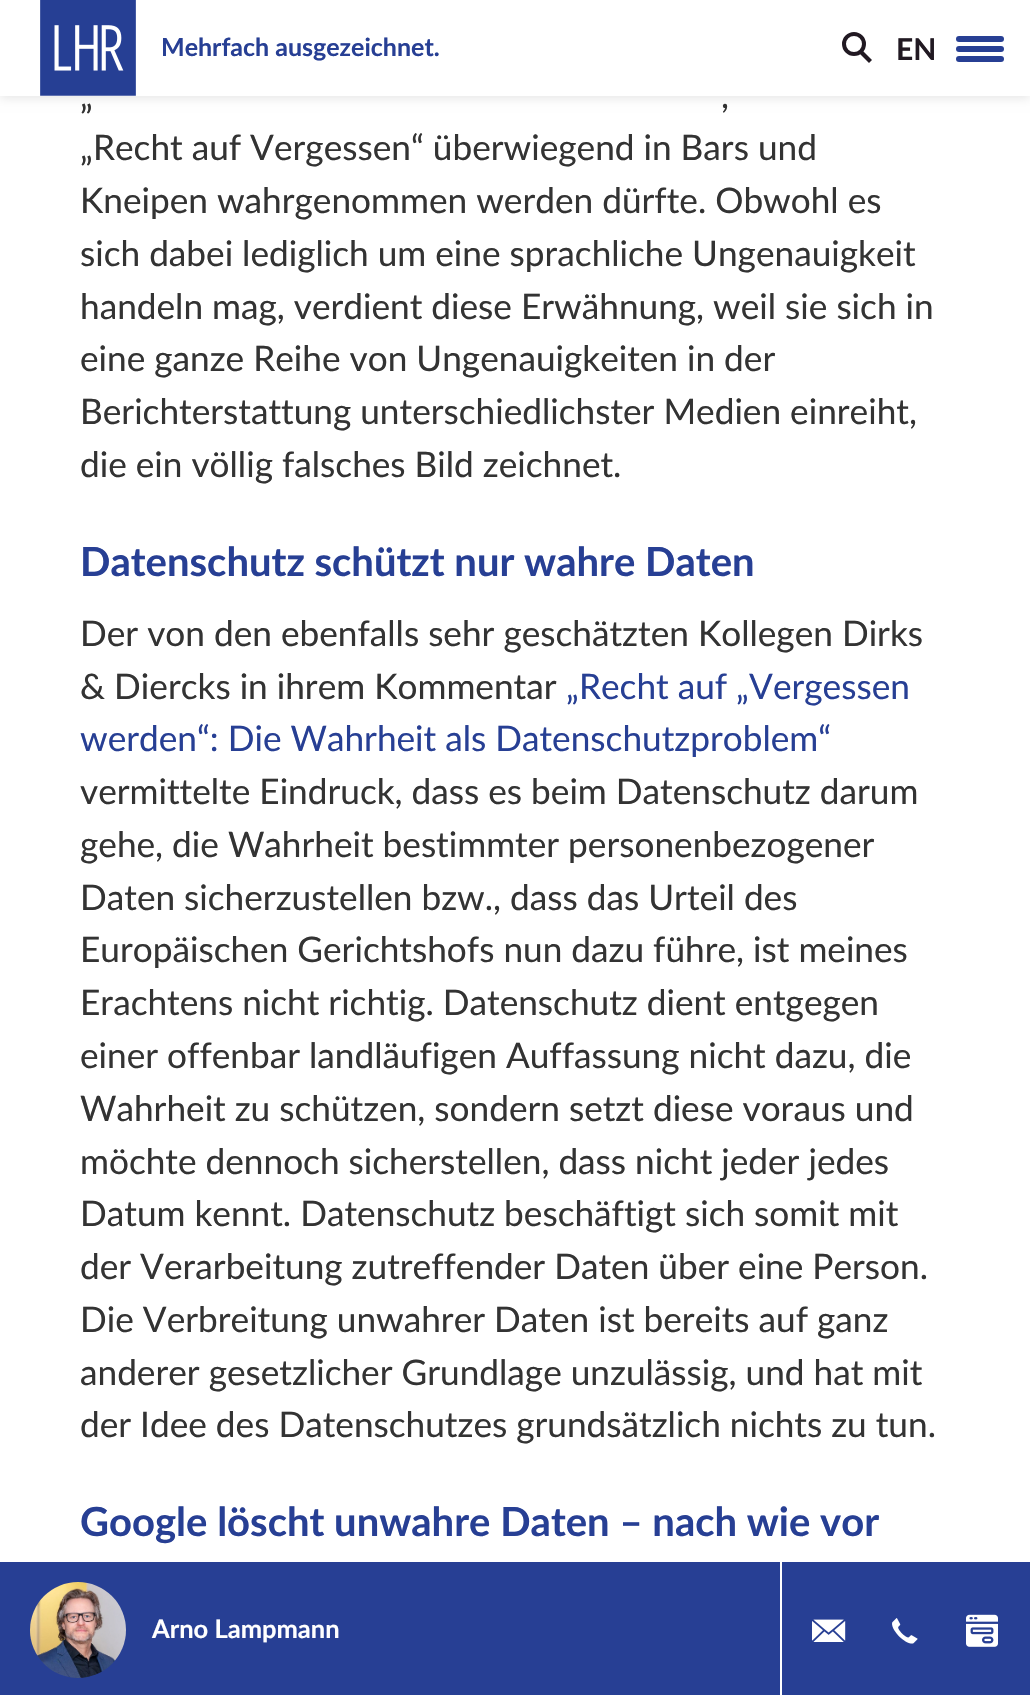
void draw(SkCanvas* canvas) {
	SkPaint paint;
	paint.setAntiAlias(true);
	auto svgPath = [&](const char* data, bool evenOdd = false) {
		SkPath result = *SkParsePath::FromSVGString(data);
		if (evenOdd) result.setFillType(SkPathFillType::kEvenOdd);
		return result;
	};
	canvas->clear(0xffffffff);
	paint.setColor(0x1a000000);
	paint.setMaskFilter(SkMaskFilter::MakeBlur(kNormal_SkBlurStyle, 5));
	canvas->drawRect(SkRect::MakeXYWH(0, 2, 1030, 96), paint);
	paint.setMaskFilter(nullptr);
	paint.setColor(0xffffffff);
	canvas->drawRect(SkRect::MakeXYWH(0, 0, 1030, 96), paint);
	canvas->drawImageRect(SkImages::DeferredFromEncodedData(SkData::MakeFromFileName("img1.png")), SkRect::MakeXYWH(40, 0, 96, 96), SkSamplingOptions());
	SkFont f1(fontMgr->matchFamilyStyle("Lato", SkFontStyle::Bold()), 25);
	f1.setSubpixel(true);
	paint.setColor(0xff273f94);
	canvas->drawString("Mehrfach ausgezeichnet.", 161, 56, f1, paint);
	paint.setStroke(true);
	paint.setStrokeWidth(4);
	paint.setColor(0xff211922);
	canvas->drawCircle(854, 44, 10, paint);
	paint.setStroke(false);
	canvas->drawPath(svgPath("M858 52L861 49L872 60L869 63Z"), paint);
	SkFont f2(fontMgr->matchFamilyStyle("Lato", SkFontStyle::Bold()), 30);
	f2.setSubpixel(true);
	canvas->drawString("EN", 896, 60, f2, paint);
	paint.setColor(0xff273f94);
	canvas->drawRoundRect(SkRect::MakeXYWH(956, 46, 48, 6), 3, 3, paint);
	canvas->drawRoundRect(SkRect::MakeXYWH(956, 36, 48, 6), 3, 3, paint);
	canvas->drawRoundRect(SkRect::MakeXYWH(956, 56, 48, 6), 3, 3, paint);
	SkFont f3(fontMgr->matchFamilyStyle("Lato", SkFontStyle::Normal()), 35.2);
	f3.setSubpixel(true);
	paint.setColor(0xff333333);
	canvas->drawString("„", 80, 108, f3, paint);
	canvas->drawString(",", 721, 108, f3, paint);
	canvas->drawString("„Recht auf Vergessen“ überwiegend in Bars und", 80, 160, f3, paint);
	canvas->drawString("Kneipen wahrgenommen werden dürfte. Obwohl es", 80, 213, f3, paint);
	canvas->drawString("sich dabei lediglich um eine sprachliche Ungenauigkeit", 80, 266, f3, paint);
	canvas->drawString("handeln mag, verdient diese Erwähnung, weil sie sich in", 80, 319, f3, paint);
	canvas->drawString("eine ganze Reihe von Ungenauigkeiten in der", 80, 371, f3, paint);
	canvas->drawString("Berichterstattung unterschiedlichster Medien einreiht,", 80, 424, f3, paint);
	canvas->drawString("die ein völlig falsches Bild zeichnet.", 80, 477, f3, paint);
	SkFont f4(fontMgr->matchFamilyStyle("Lato", SkFontStyle::Bold()), 40);
	f4.setSubpixel(true);
	paint.setColor(0xff273f94);
	canvas->drawString("Datenschutz schützt nur wahre Daten", 80, 576, f4, paint);
	paint.setColor(0xff333333);
	canvas->drawString("Der von den ebenfalls sehr geschätzten Kollegen Dirks", 80, 646, f3, paint);
	canvas->drawString("& Diercks in ihrem Kommentar", 80, 699, f3, paint);
	paint.setColor(0xff273f94);
	canvas->drawString("„Recht auf „Vergessen", 566, 699, f3, paint);
	canvas->drawString("werden“: Die Wahrheit als Datenschutzproblem“", 80, 751, f3, paint);
	paint.setColor(0xff333333);
	canvas->drawString("vermittelte Eindruck, dass es beim Datenschutz darum", 80, 804, f3, paint);
	canvas->drawString("gehe, die Wahrheit bestimmter personenbezogener", 80, 857, f3, paint);
	canvas->drawString("Daten sicherzustellen bzw., dass das Urteil des", 80, 910, f3, paint);
	canvas->drawString("Europäischen Gerichtshofs nun dazu führe, ist meines", 80, 962, f3, paint);
	canvas->drawString("Erachtens nicht richtig. Datenschutz dient entgegen", 80, 1015, f3, paint);
	canvas->drawString("einer offenbar landläufigen Auffassung nicht dazu, die", 80, 1068, f3, paint);
	canvas->drawString("Wahrheit zu schützen, sondern setzt diese voraus und", 80, 1121, f3, paint);
	canvas->drawString("möchte dennoch sicherstellen, dass nicht jeder jedes", 80, 1174, f3, paint);
	canvas->drawString("Datum kennt. Datenschutz beschäftigt sich somit mit", 80, 1226, f3, paint);
	canvas->drawString("der Verarbeitung zutreffender Daten über eine Person.", 80, 1279, f3, paint);
	canvas->drawString("Die Verbreitung unwahrer Daten ist bereits auf ganz", 80, 1332, f3, paint);
	canvas->drawString("anderer gesetzlicher Grundlage unzulässig, und hat mit", 80, 1385, f3, paint);
	canvas->drawString("der Idee des Datenschutzes grundsätzlich nichts zu tun.", 80, 1437, f3, paint);
	paint.setColor(0xff273f94);
	canvas->drawString("Google löscht unwahre Daten – nach wie vor", 80, 1536, f4, paint);
	canvas->drawRect(SkRect::MakeXYWH(0, 1562, 1030, 133), paint);
	canvas->drawImageRect(SkImages::DeferredFromEncodedData(SkData::MakeFromFileName("img2.png")), SkRect::MakeXYWH(30, 1582, 96, 96), SkSamplingOptions());
	SkFont f5(fontMgr->matchFamilyStyle("Lato", SkFontStyle::Bold()), 25.5);
	f5.setSubpixel(true);
	paint.setColor(0xffffffff);
	canvas->drawString("Arno Lampmann", 152, 1638, f5, paint);
	canvas->drawRect(SkRect::MakeXYWH(780, 1562, 2, 133), paint);
	canvas->drawImageRect(SkImages::DeferredFromEncodedData(SkData::MakeFromFileName("img3.png")), SkRect::MakeXYWH(812, 1619, 34, 23), SkSamplingOptions());
	canvas->drawImageRect(SkImages::DeferredFromEncodedData(SkData::MakeFromFileName("img4.png")), SkRect::MakeXYWH(892, 1618, 26, 26), SkSamplingOptions());
	canvas->drawImageRect(SkImages::DeferredFromEncodedData(SkData::MakeFromFileName("img5.png")), SkRect::MakeXYWH(966, 1614, 32, 33), SkSamplingOptions());
}
